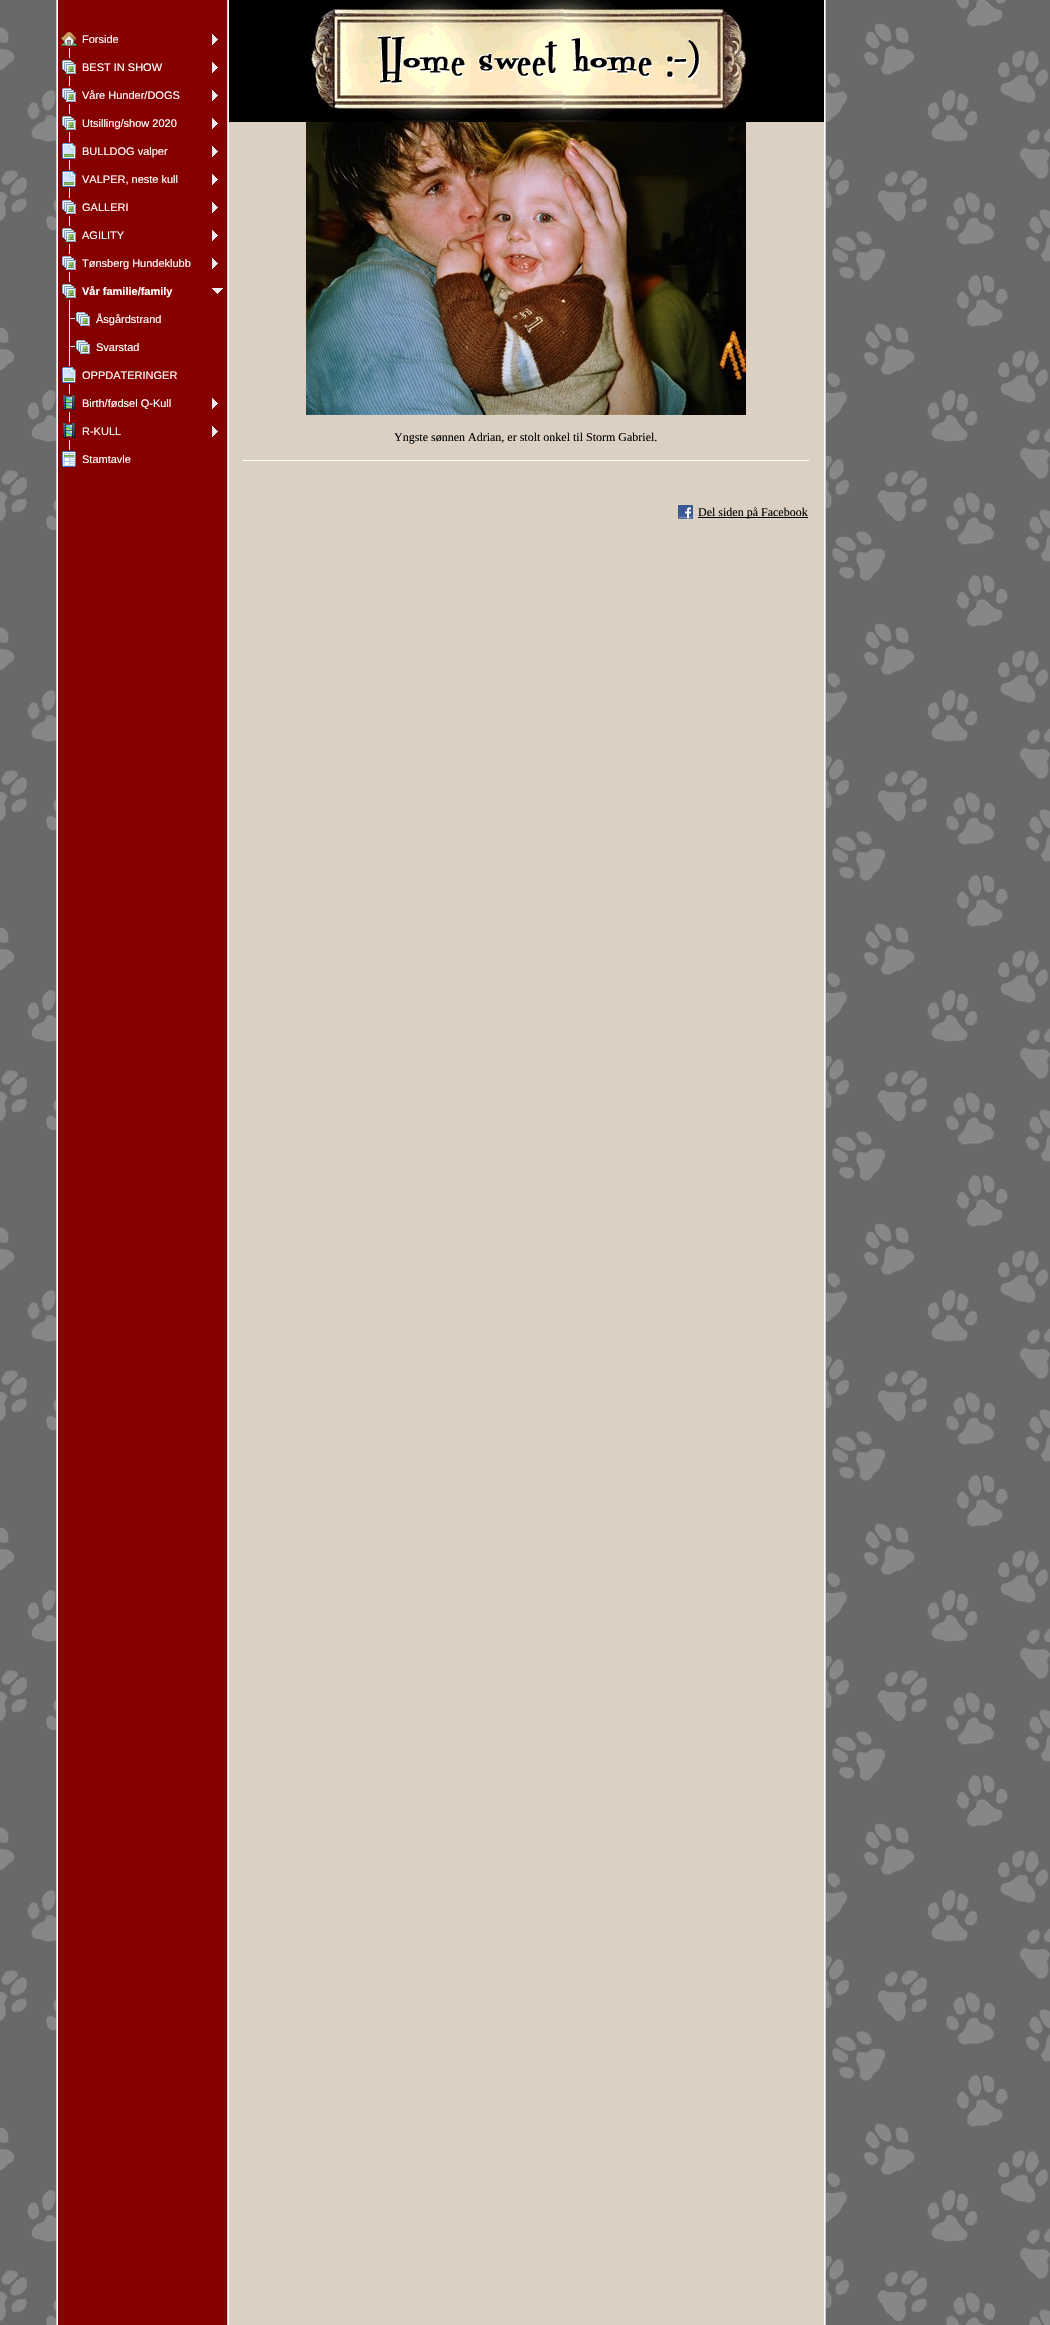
void draw(SkCanvas* canvas) {
	SkPaint paint;
	paint.setAntiAlias(true);
	canvas->clear(0xffffffff);
	canvas->drawImageRect(SkImages::DeferredFromEncodedData(SkData::MakeFromFileName("img1.png")), SkRect::MakeXYWH(0, 0, 1050, 2325), SkSamplingOptions());
	paint.setColor(0xffffffff);
	canvas->drawRect(SkRect::MakeXYWH(57, 0, 768, 2325), paint);
	paint.setColor(0xffcccccc);
	canvas->drawRect(SkRect::MakeXYWH(56, 0, 1, 2325), paint);
	paint.setColor(0xff870000);
	canvas->drawRect(SkRect::MakeXYWH(58, 0, 169, 2325), paint);
	paint.setColor(0xffefefef);
	canvas->drawRect(SkRect::MakeXYWH(69, 48, 1, 5), paint);
	canvas->drawImageRect(SkImages::DeferredFromEncodedData(SkData::MakeFromFileName("img2.png")), SkRect::MakeXYWH(61, 32, 16, 14), SkSamplingOptions());
	canvas->drawImageRect(SkImages::DeferredFromEncodedData(SkData::MakeFromFileName("img3.png")), SkRect::MakeXYWH(212, 34, 6, 11), SkSamplingOptions());
	SkFont f1(fontMgr->matchFamilyStyle("Liberation Sans", SkFontStyle::Normal()), 11);
	f1.setSubpixel(true);
	paint.setColor(0xffffffff);
	canvas->drawString("Forside", 82, 43, f1, paint);
	canvas->drawImageRect(SkImages::DeferredFromEncodedData(SkData::MakeFromFileName("img4.png")), SkRect::MakeXYWH(69, 53, 1, 28), SkSamplingOptions());
	canvas->drawImageRect(SkImages::DeferredFromEncodedData(SkData::MakeFromFileName("img5.png")), SkRect::MakeXYWH(62, 60, 14, 14), SkSamplingOptions());
	canvas->drawImageRect(SkImages::DeferredFromEncodedData(SkData::MakeFromFileName("img3.png")), SkRect::MakeXYWH(212, 62, 6, 11), SkSamplingOptions());
	canvas->drawString("BEST IN SHOW", 82, 71, f1, paint);
	canvas->drawImageRect(SkImages::DeferredFromEncodedData(SkData::MakeFromFileName("img4.png")), SkRect::MakeXYWH(69, 81, 1, 28), SkSamplingOptions());
	canvas->drawImageRect(SkImages::DeferredFromEncodedData(SkData::MakeFromFileName("img5.png")), SkRect::MakeXYWH(62, 88, 14, 14), SkSamplingOptions());
	canvas->drawImageRect(SkImages::DeferredFromEncodedData(SkData::MakeFromFileName("img3.png")), SkRect::MakeXYWH(212, 90, 6, 11), SkSamplingOptions());
	canvas->drawString("Våre Hunder/DOGS", 82, 99, f1, paint);
	canvas->drawImageRect(SkImages::DeferredFromEncodedData(SkData::MakeFromFileName("img4.png")), SkRect::MakeXYWH(69, 109, 1, 28), SkSamplingOptions());
	canvas->drawImageRect(SkImages::DeferredFromEncodedData(SkData::MakeFromFileName("img5.png")), SkRect::MakeXYWH(62, 116, 14, 14), SkSamplingOptions());
	canvas->drawImageRect(SkImages::DeferredFromEncodedData(SkData::MakeFromFileName("img3.png")), SkRect::MakeXYWH(212, 118, 6, 11), SkSamplingOptions());
	canvas->drawString("Utsilling/show 2020", 82, 127, f1, paint);
	canvas->drawImageRect(SkImages::DeferredFromEncodedData(SkData::MakeFromFileName("img4.png")), SkRect::MakeXYWH(69, 137, 1, 28), SkSamplingOptions());
	canvas->drawImageRect(SkImages::DeferredFromEncodedData(SkData::MakeFromFileName("img6.png")), SkRect::MakeXYWH(62, 143, 14, 16), SkSamplingOptions());
	canvas->drawImageRect(SkImages::DeferredFromEncodedData(SkData::MakeFromFileName("img3.png")), SkRect::MakeXYWH(212, 146, 6, 11), SkSamplingOptions());
	canvas->drawString("BULLDOG valper", 82, 155, f1, paint);
	canvas->drawImageRect(SkImages::DeferredFromEncodedData(SkData::MakeFromFileName("img4.png")), SkRect::MakeXYWH(69, 165, 1, 28), SkSamplingOptions());
	canvas->drawImageRect(SkImages::DeferredFromEncodedData(SkData::MakeFromFileName("img6.png")), SkRect::MakeXYWH(62, 171, 14, 16), SkSamplingOptions());
	canvas->drawImageRect(SkImages::DeferredFromEncodedData(SkData::MakeFromFileName("img3.png")), SkRect::MakeXYWH(212, 174, 6, 11), SkSamplingOptions());
	canvas->drawString("VALPER, neste kull", 82, 183, f1, paint);
	canvas->drawImageRect(SkImages::DeferredFromEncodedData(SkData::MakeFromFileName("img4.png")), SkRect::MakeXYWH(69, 193, 1, 28), SkSamplingOptions());
	canvas->drawImageRect(SkImages::DeferredFromEncodedData(SkData::MakeFromFileName("img5.png")), SkRect::MakeXYWH(62, 200, 14, 14), SkSamplingOptions());
	canvas->drawImageRect(SkImages::DeferredFromEncodedData(SkData::MakeFromFileName("img3.png")), SkRect::MakeXYWH(212, 202, 6, 11), SkSamplingOptions());
	canvas->drawString("GALLERI", 82, 211, f1, paint);
	canvas->drawImageRect(SkImages::DeferredFromEncodedData(SkData::MakeFromFileName("img4.png")), SkRect::MakeXYWH(69, 221, 1, 28), SkSamplingOptions());
	canvas->drawImageRect(SkImages::DeferredFromEncodedData(SkData::MakeFromFileName("img5.png")), SkRect::MakeXYWH(62, 228, 14, 14), SkSamplingOptions());
	canvas->drawImageRect(SkImages::DeferredFromEncodedData(SkData::MakeFromFileName("img3.png")), SkRect::MakeXYWH(212, 230, 6, 11), SkSamplingOptions());
	canvas->drawString("AGILITY", 82, 239, f1, paint);
	canvas->drawImageRect(SkImages::DeferredFromEncodedData(SkData::MakeFromFileName("img4.png")), SkRect::MakeXYWH(69, 249, 1, 28), SkSamplingOptions());
	canvas->drawImageRect(SkImages::DeferredFromEncodedData(SkData::MakeFromFileName("img5.png")), SkRect::MakeXYWH(62, 256, 14, 14), SkSamplingOptions());
	canvas->drawImageRect(SkImages::DeferredFromEncodedData(SkData::MakeFromFileName("img3.png")), SkRect::MakeXYWH(212, 258, 6, 11), SkSamplingOptions());
	canvas->drawString("Tønsberg Hundeklubb", 82, 267, f1, paint);
	canvas->drawImageRect(SkImages::DeferredFromEncodedData(SkData::MakeFromFileName("img4.png")), SkRect::MakeXYWH(69, 277, 1, 28), SkSamplingOptions());
	canvas->drawImageRect(SkImages::DeferredFromEncodedData(SkData::MakeFromFileName("img5.png")), SkRect::MakeXYWH(62, 284, 14, 14), SkSamplingOptions());
	canvas->drawImageRect(SkImages::DeferredFromEncodedData(SkData::MakeFromFileName("img7.png")), SkRect::MakeXYWH(212, 288, 11, 6), SkSamplingOptions());
	SkFont f2(fontMgr->matchFamilyStyle("Liberation Sans", SkFontStyle::Bold()), 11);
	f2.setSubpixel(true);
	canvas->drawString("Vår familie/family", 82, 295, f2, paint);
	canvas->drawImageRect(SkImages::DeferredFromEncodedData(SkData::MakeFromFileName("img8.png")), SkRect::MakeXYWH(69, 305, 6, 28), SkSamplingOptions());
	canvas->drawImageRect(SkImages::DeferredFromEncodedData(SkData::MakeFromFileName("img5.png")), SkRect::MakeXYWH(76, 312, 14, 14), SkSamplingOptions());
	canvas->drawString("Åsgårdstrand", 96, 323, f1, paint);
	canvas->drawImageRect(SkImages::DeferredFromEncodedData(SkData::MakeFromFileName("img8.png")), SkRect::MakeXYWH(69, 333, 6, 28), SkSamplingOptions());
	canvas->drawImageRect(SkImages::DeferredFromEncodedData(SkData::MakeFromFileName("img5.png")), SkRect::MakeXYWH(76, 340, 14, 14), SkSamplingOptions());
	canvas->drawString("Svarstad", 96, 351, f1, paint);
	canvas->drawImageRect(SkImages::DeferredFromEncodedData(SkData::MakeFromFileName("img4.png")), SkRect::MakeXYWH(69, 361, 1, 28), SkSamplingOptions());
	canvas->drawImageRect(SkImages::DeferredFromEncodedData(SkData::MakeFromFileName("img6.png")), SkRect::MakeXYWH(62, 367, 14, 16), SkSamplingOptions());
	canvas->drawString("OPPDATERINGER", 82, 379, f1, paint);
	canvas->drawImageRect(SkImages::DeferredFromEncodedData(SkData::MakeFromFileName("img4.png")), SkRect::MakeXYWH(69, 389, 1, 28), SkSamplingOptions());
	canvas->drawImageRect(SkImages::DeferredFromEncodedData(SkData::MakeFromFileName("img9.png")), SkRect::MakeXYWH(63, 395, 12, 15), SkSamplingOptions());
	canvas->drawImageRect(SkImages::DeferredFromEncodedData(SkData::MakeFromFileName("img3.png")), SkRect::MakeXYWH(212, 398, 6, 11), SkSamplingOptions());
	canvas->drawString("Birth/fødsel Q-Kull", 82, 407, f1, paint);
	canvas->drawImageRect(SkImages::DeferredFromEncodedData(SkData::MakeFromFileName("img4.png")), SkRect::MakeXYWH(69, 417, 1, 28), SkSamplingOptions());
	canvas->drawImageRect(SkImages::DeferredFromEncodedData(SkData::MakeFromFileName("img9.png")), SkRect::MakeXYWH(63, 423, 12, 15), SkSamplingOptions());
	canvas->drawImageRect(SkImages::DeferredFromEncodedData(SkData::MakeFromFileName("img3.png")), SkRect::MakeXYWH(212, 426, 6, 11), SkSamplingOptions());
	canvas->drawString("R-KULL", 82, 435, f1, paint);
	paint.setColor(0xffefefef);
	canvas->drawRect(SkRect::MakeXYWH(69, 445, 1, 5), paint);
	canvas->drawImageRect(SkImages::DeferredFromEncodedData(SkData::MakeFromFileName("img10.png")), SkRect::MakeXYWH(62, 451, 14, 16), SkSamplingOptions());
	paint.setColor(0xffffffff);
	canvas->drawString("Stamtavle", 82, 463, f1, paint);
	paint.setColor(0xffcccccc);
	canvas->drawRect(SkRect::MakeXYWH(227, 0, 1, 2325), paint);
	canvas->drawRect(SkRect::MakeXYWH(825, 0, 1, 2325), paint);
	paint.setColor(0xffdbd0c1);
	canvas->drawRect(SkRect::MakeXYWH(229, 122, 595, 2203), paint);
	canvas->drawImageRect(SkImages::DeferredFromEncodedData(SkData::MakeFromFileName("img11.png")), SkRect::MakeXYWH(229, 0, 595, 122), SkSamplingOptions());
	canvas->drawImageRect(SkImages::DeferredFromEncodedData(SkData::MakeFromFileName("img12.png")), SkRect::MakeXYWH(306, 122, 440, 293), SkSamplingOptions());
	SkFont f3(fontMgr->matchFamilyStyle("Liberation Serif", SkFontStyle::Normal()), 12);
	f3.setSubpixel(true);
	paint.setColor(0xff000000);
	canvas->drawString("Yngste sønnen Adrian, er stolt onkel til Storm Gabriel.", 394, 441, f3, paint);
	paint.setColor(0xffffffff);
	canvas->drawRect(SkRect::MakeXYWH(243, 460, 566, 1), paint);
	canvas->drawImageRect(SkImages::DeferredFromEncodedData(SkData::MakeFromFileName("img13.png")), SkRect::MakeXYWH(678, 505, 15, 14), SkSamplingOptions());
	paint.setColor(0xff000000);
	canvas->drawRect(SkRect::MakeXYWH(698, 517, 110, 1), paint);
	canvas->drawString("Del siden på Facebook", 698, 516, f3, paint);
}
